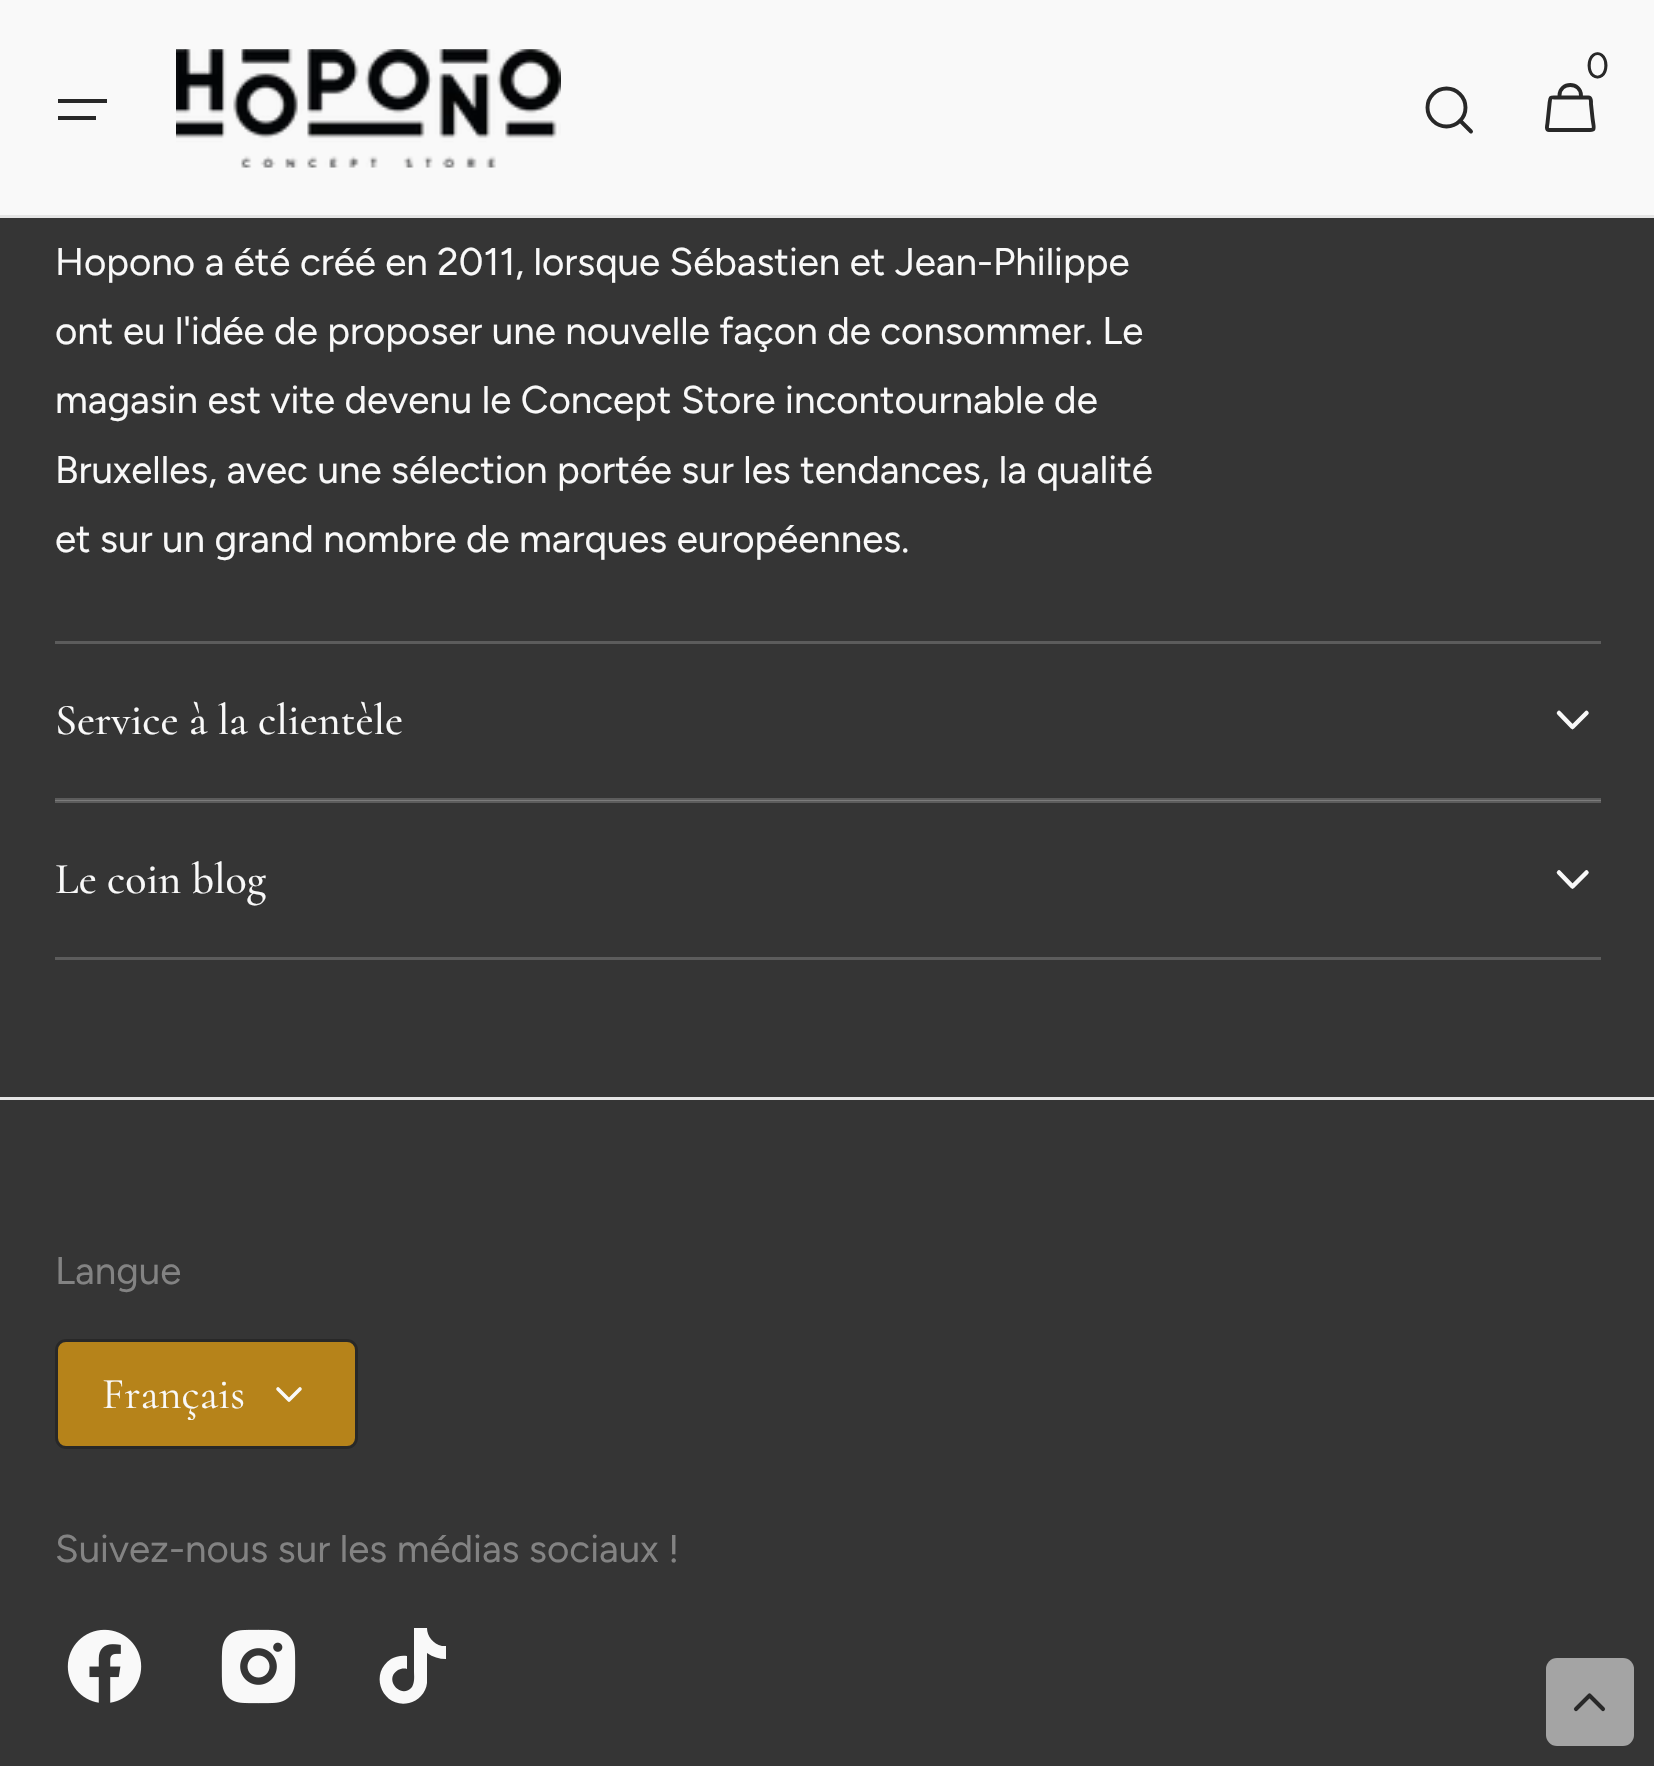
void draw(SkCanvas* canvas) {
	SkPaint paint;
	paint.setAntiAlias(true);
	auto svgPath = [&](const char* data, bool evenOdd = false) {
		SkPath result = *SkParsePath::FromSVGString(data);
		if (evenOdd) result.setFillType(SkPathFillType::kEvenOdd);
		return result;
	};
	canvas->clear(0xff353535);
	paint.setColor(0xfff9f9f9);
	canvas->drawRect(SkRect::MakeXYWH(0, 0, 1654, 215), paint);
	canvas->drawImageRect(SkImages::DeferredFromEncodedData(SkData::MakeFromFileName("img1.png")), SkRect::MakeXYWH(176, 49, 385, 119), SkSamplingOptions());
	SkFont f1(fontMgr->matchFamilyStyle("Figtree", SkFontStyle::Normal()), 36);
	f1.setSubpixel(true);
	paint.setColor(0xff282828);
	canvas->drawString("0", 1586, 78, f1, paint);
	paint.setStroke(true);
	paint.setStrokeWidth(3.9);
	paint.setStrokeCap(SkPaint::kRound_Cap);
	paint.setStrokeJoin(SkPaint::kRound_Join);
	canvas->drawPath(svgPath("M1588.5 97.5H1558C1549.5 97.5 1550.5 96 1549.5 104L1547.5 123C1547.5 124 1545.5 130 1549 130H1584.5C1596.5 130 1594 131 1592.5 118L1591 104C1591 103 1591.5 97.5 1588.5 97.5ZM1559.5 95.5C1559.5 81.5 1581 81.5 1581 95.5"), paint);
	canvas->drawPath(svgPath("M1446.5 126.5C1457 126.5 1465.5 118 1465.5 107.5C1465.5 97 1457 88.5 1446.5 88.5C1436 88.5 1427.5 97 1427.5 107.5C1427.5 118 1436 126.5 1446.5 126.5ZM1460 120.5L1471 131.5"), paint);
	paint.setStroke(false);
	canvas->drawRect(SkRect::MakeXYWH(58, 99, 49, 4), paint);
	canvas->drawRect(SkRect::MakeXYWH(58, 116, 38, 4), paint);
	paint.setColor(0xffe5e5e5);
	canvas->drawRect(SkRect::MakeXYWH(0, 215, 1654, 3), paint);
	paint.setColor(0xff5c5c5c);
	canvas->drawRect(SkRect::MakeXYWH(55, 801, 1546, 2), paint);
	SkFont f2(fontMgr->matchFamilyStyle("Figtree", SkFontStyle::Normal()), 38.5);
	f2.setSubpixel(true);
	paint.setColor(0xfff9f9f9);
	canvas->drawString("Hopono a été créé en 2011, lorsque Sébastien et Jean-Philippe", 55, 275, f2, paint);
	canvas->drawString("ont eu l'idée de proposer une nouvelle façon de consommer. Le", 55, 344, f2, paint);
	canvas->drawString("magasin est vite devenu le Concept Store incontournable de", 55, 413, f2, paint);
	canvas->drawString("Bruxelles, avec une sélection portée sur les tendances, la qualité", 55, 483, f2, paint);
	canvas->drawString("et sur un grand nombre de marques européennes.", 55, 552, f2, paint);
	paint.setColor(0xff5c5c5c);
	canvas->drawRect(SkRect::MakeXYWH(55, 641, 1546, 3), paint);
	canvas->drawRect(SkRect::MakeXYWH(55, 798, 1546, 2), paint);
	paint.setColor(0xff7b7b7b);
	canvas->drawRect(SkRect::MakeXYWH(55, 800, 1546, 1), paint);
	SkFont f3(fontMgr->matchFamilyStyle("Cormorant", SkFontStyle(500, SkFontStyle::kNormal_Width, SkFontStyle::kUpright_Slant)), 44);
	f3.setSubpixel(true);
	paint.setColor(0xfff9f9f9);
	canvas->drawString("Service à la clientèle", 55, 734, f3, paint);
	paint.setStroke(true);
	paint.setStrokeWidth(4.5);
	canvas->drawPath(svgPath("M1586.5 713L1572.5 727L1559 713"), paint);
	paint.setStroke(false);
	paint.setColor(0xff5c5c5c);
	canvas->drawRect(SkRect::MakeXYWH(55, 957, 1546, 3), paint);
	paint.setColor(0xfff9f9f9);
	canvas->drawString("Le coin blog", 55, 893, f3, paint);
	paint.setStroke(true);
	canvas->drawPath(svgPath("M1586.5 872.5L1572.5 886.5L1559 872.5"), paint);
	paint.setStroke(false);
	paint.setColor(0xffe5e5e5);
	canvas->drawRect(SkRect::MakeXYWH(0, 1097, 1654, 3), paint);
	paint.setColor(0xff838383);
	canvas->drawString("Langue", 55, 1284, f2, paint);
	paint.setColor(0xffb6831a);
	canvas->drawRoundRect(SkRect::MakeXYWH(56.5, 1340.5, 300, 107), 9.5, 9.5, paint);
	paint.setStroke(true);
	paint.setStrokeWidth(3);
	paint.setStrokeCap(SkPaint::kButt_Cap);
	paint.setStrokeJoin(SkPaint::kMiter_Join);
	paint.setColor(0xff282828);
	canvas->drawRoundRect(SkRect::MakeXYWH(56.5, 1340.5, 300, 107), 9.5, 9.5, paint);
	SkFont f4(fontMgr->matchFamilyStyle("Cormorant", SkFontStyle::Normal()), 44);
	f4.setSubpixel(true);
	paint.setStroke(false);
	paint.setColor(0xfff9f9f9);
	canvas->drawString("Français", 102, 1408, f4, paint);
	paint.setStroke(true);
	paint.setStrokeWidth(3.6);
	paint.setStrokeCap(SkPaint::kRound_Cap);
	paint.setStrokeJoin(SkPaint::kRound_Join);
	canvas->drawPath(svgPath("M300 1389L289 1400L278 1389"), paint);
	paint.setStroke(false);
	paint.setColor(0xff838383);
	canvas->drawString("Suivez-nous sur les médias sociaux !", 55, 1562, f2, paint);
	canvas->drawImageRect(SkImages::DeferredFromEncodedData(SkData::MakeFromFileName("img2.png")), SkRect::MakeXYWH(67, 1629, 75, 74), SkSamplingOptions());
	canvas->drawImageRect(SkImages::DeferredFromEncodedData(SkData::MakeFromFileName("img3.png")), SkRect::MakeXYWH(221, 1629, 75, 75), SkSamplingOptions());
	paint.setColor(0xfff9f9f9);
	canvas->drawPath(svgPath("M442 1646C433 1644 427 1636 427 1628H414V1671C414 1676 415 1682 412 1687C401 1700 383 1679 398 1670C400 1669 404 1668 407 1669V1656C401 1655 395 1657 391 1659C368 1674 383 1709 409 1703C418 1701 426 1693 427 1683V1653C433 1657 439 1659 446 1659V1646Z"), paint);
	paint.setColor(0xffa4a4a4);
	canvas->drawRoundRect(SkRect::MakeXYWH(1546, 1658, 88, 88), 11, 11, paint);
	paint.setStroke(true);
	paint.setStrokeWidth(4.1);
	paint.setColor(0xff282828);
	canvas->drawPath(svgPath("M1576 1709L1589.5 1695.5L1603 1709"), paint);
}
